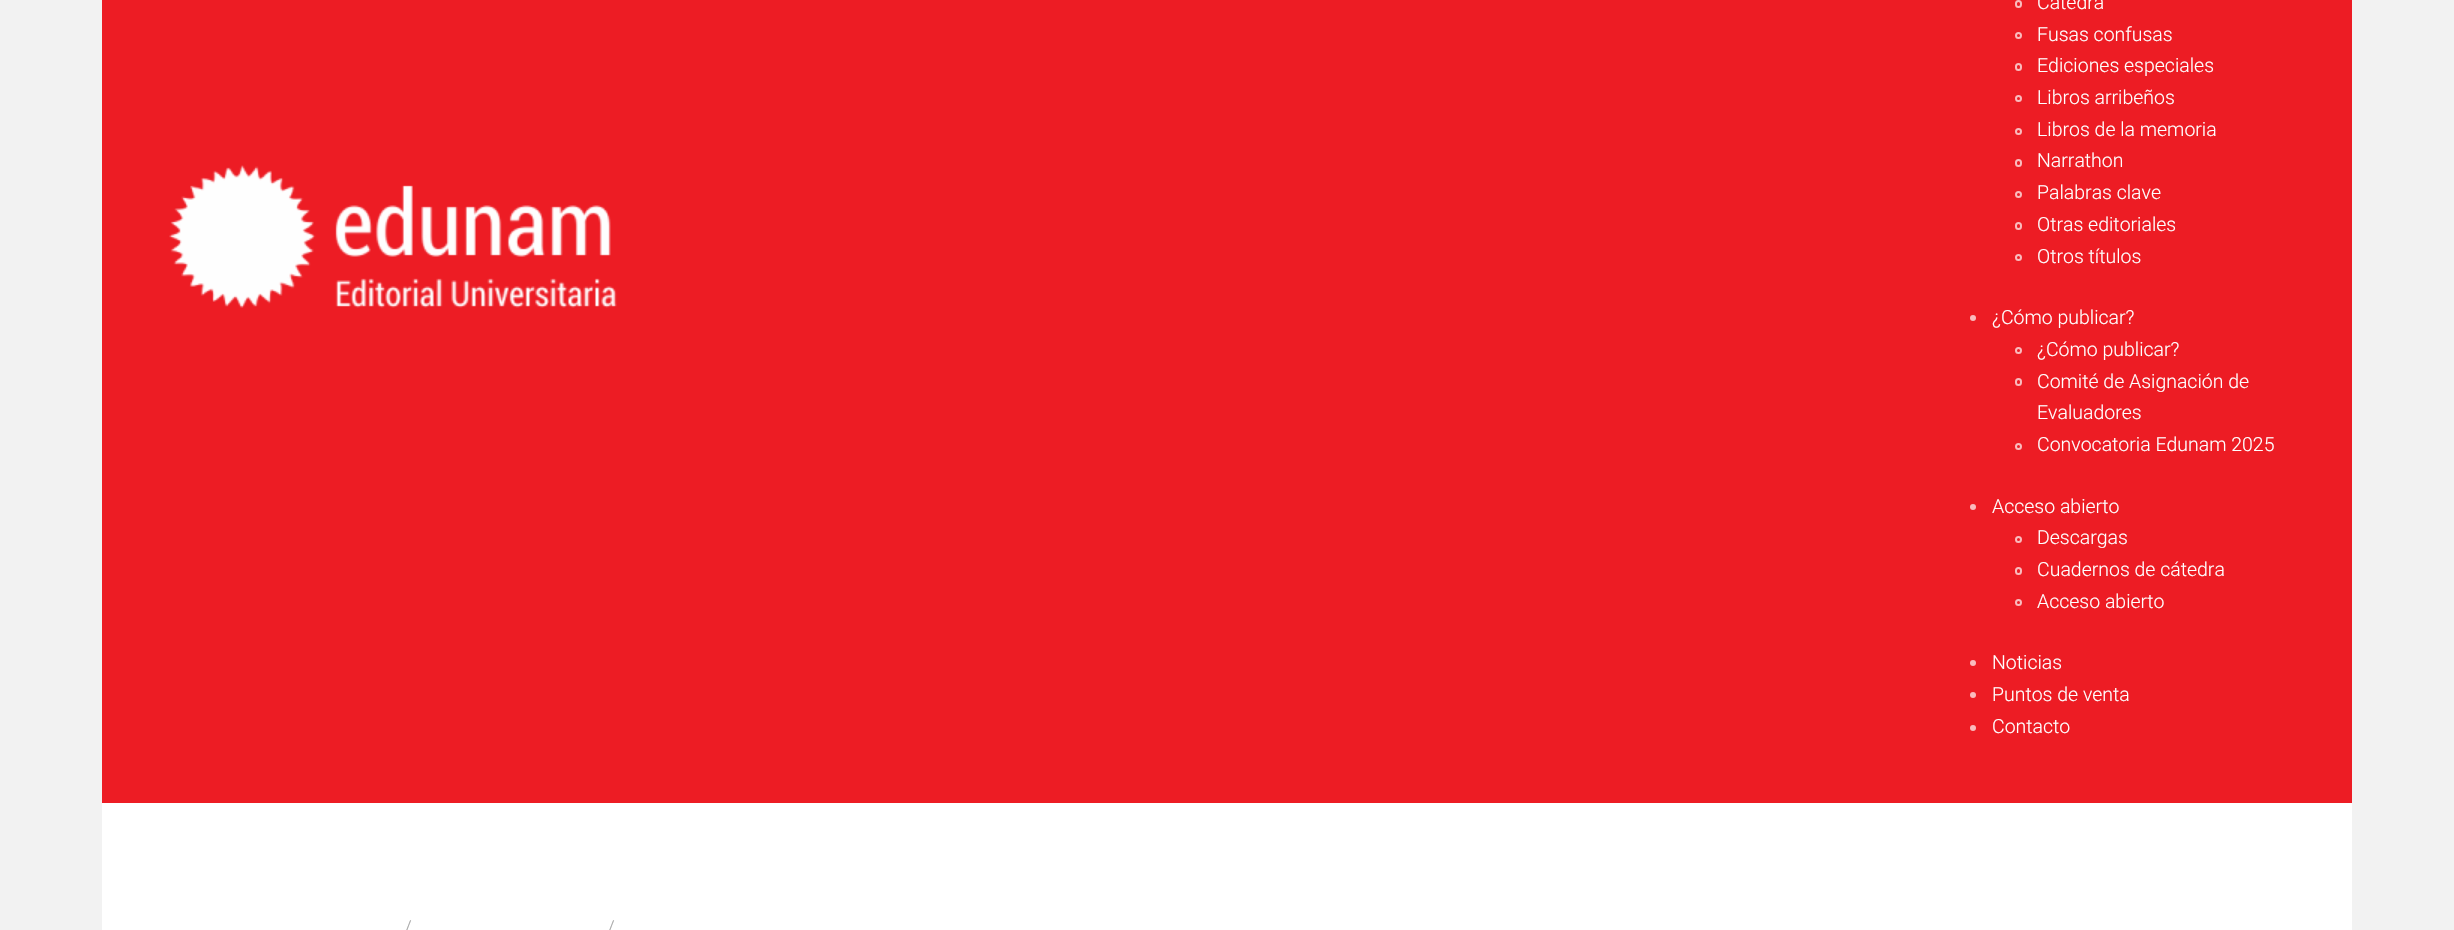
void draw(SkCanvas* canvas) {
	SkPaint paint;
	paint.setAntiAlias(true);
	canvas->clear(0xfff2f2f2);
	paint.setColor(0xffffffff);
	canvas->drawRect(SkRect::MakeXYWH(102, 803, 2250, 127), paint);
	paint.setColor(0xffed1c24);
	canvas->drawRect(SkRect::MakeXYWH(102, 0, 2250, 803), paint);
	canvas->drawImageRect(SkImages::DeferredFromEncodedData(SkData::MakeFromFileName("img1.png")), SkRect::MakeXYWH(169, 165, 448, 143), SkSamplingOptions());
	paint.setStroke(true);
	paint.setStrokeWidth(2);
	paint.setColor(0xfffabbbd);
	canvas->drawRoundRect(SkRect::MakeXYWH(2016, 1, 5, 6), 2.5, 2.5, paint);
	SkFont f1(fontMgr->matchFamilyStyle("Roboto", SkFontStyle(300, SkFontStyle::kNormal_Width, SkFontStyle::kUpright_Slant)), 19.5);
	f1.setSubpixel(true);
	paint.setStroke(false);
	paint.setColor(0xffffffff);
	canvas->drawString("Cátedra", 2037, 9, f1, paint);
	paint.setStroke(true);
	paint.setColor(0xfffabbbd);
	canvas->drawCircle(2018.5, 35.5, 2.5, paint);
	paint.setStroke(false);
	paint.setColor(0xffffffff);
	canvas->drawString("Fusas confusas", 2037, 41, f1, paint);
	paint.setStroke(true);
	paint.setColor(0xfffabbbd);
	canvas->drawRoundRect(SkRect::MakeXYWH(2016, 64, 5, 6), 2.5, 2.5, paint);
	paint.setStroke(false);
	paint.setColor(0xffffffff);
	canvas->drawString("Ediciones especiales", 2037, 72, f1, paint);
	paint.setStroke(true);
	paint.setColor(0xfffabbbd);
	canvas->drawCircle(2018.5, 98.5, 2.5, paint);
	paint.setStroke(false);
	paint.setColor(0xffffffff);
	canvas->drawString("Libros arribeños", 2037, 104, f1, paint);
	paint.setStroke(true);
	paint.setColor(0xfffabbbd);
	canvas->drawCircle(2018.5, 131.5, 2.5, paint);
	paint.setStroke(false);
	paint.setColor(0xffffffff);
	canvas->drawString("Libros de la memoria", 2037, 136, f1, paint);
	paint.setStroke(true);
	paint.setColor(0xfffabbbd);
	canvas->drawRoundRect(SkRect::MakeXYWH(2016, 160, 5, 6), 2.5, 2.5, paint);
	paint.setStroke(false);
	paint.setColor(0xffffffff);
	canvas->drawString("Narrathon", 2037, 167, f1, paint);
	paint.setStroke(true);
	paint.setColor(0xfffabbbd);
	canvas->drawCircle(2018.5, 194.5, 2.5, paint);
	paint.setStroke(false);
	paint.setColor(0xffffffff);
	canvas->drawString("Palabras clave", 2037, 199, f1, paint);
	paint.setStroke(true);
	paint.setColor(0xfffabbbd);
	canvas->drawRoundRect(SkRect::MakeXYWH(2016, 223, 5, 6), 2.5, 2.5, paint);
	paint.setStroke(false);
	paint.setColor(0xffffffff);
	canvas->drawString("Otras editoriales", 2037, 231, f1, paint);
	paint.setStroke(true);
	paint.setColor(0xfffabbbd);
	canvas->drawCircle(2018.5, 257.5, 2.5, paint);
	paint.setStroke(false);
	paint.setColor(0xffffffff);
	canvas->drawString("Otros títulos", 2037, 263, f1, paint);
	paint.setColor(0xfffabbbd);
	canvas->drawCircle(1973, 318, 3, paint);
	paint.setColor(0xffffffff);
	canvas->drawString("¿Cómo publicar?", 1992, 324, f1, paint);
	paint.setStroke(true);
	paint.setColor(0xfffabbbd);
	canvas->drawCircle(2018.5, 350.5, 2.5, paint);
	paint.setStroke(false);
	paint.setColor(0xffffffff);
	canvas->drawString("¿Cómo publicar?", 2037, 356, f1, paint);
	paint.setStroke(true);
	paint.setColor(0xfffabbbd);
	canvas->drawRoundRect(SkRect::MakeXYWH(2016, 379, 5, 6), 2.5, 2.5, paint);
	paint.setStroke(false);
	paint.setColor(0xffffffff);
	canvas->drawString("Comité de Asignación de", 2037, 388, f1, paint);
	canvas->drawString("Evaluadores", 2037, 419, f1, paint);
	paint.setStroke(true);
	paint.setColor(0xfffabbbd);
	canvas->drawCircle(2018.5, 446.5, 2.5, paint);
	paint.setStroke(false);
	paint.setColor(0xffffffff);
	canvas->drawString("Convocatoria Edunam 2025", 2037, 451, f1, paint);
	paint.setColor(0xfffabbbd);
	canvas->drawCircle(1973, 507, 3, paint);
	paint.setColor(0xffffffff);
	canvas->drawString("Acceso abierto", 1992, 513, f1, paint);
	paint.setStroke(true);
	paint.setColor(0xfffabbbd);
	canvas->drawCircle(2018.5, 539.5, 2.5, paint);
	paint.setStroke(false);
	paint.setColor(0xffffffff);
	canvas->drawString("Descargas", 2037, 544, f1, paint);
	paint.setStroke(true);
	paint.setColor(0xfffabbbd);
	canvas->drawRoundRect(SkRect::MakeXYWH(2016, 568, 5, 6), 2.5, 2.5, paint);
	paint.setStroke(false);
	paint.setColor(0xffffffff);
	canvas->drawString("Cuadernos de cátedra", 2037, 576, f1, paint);
	paint.setStroke(true);
	paint.setColor(0xfffabbbd);
	canvas->drawCircle(2018.5, 602.5, 2.5, paint);
	paint.setStroke(false);
	paint.setColor(0xffffffff);
	canvas->drawString("Acceso abierto", 2037, 608, f1, paint);
	paint.setColor(0xfffabbbd);
	canvas->drawCircle(1973, 663, 3, paint);
	paint.setColor(0xffffffff);
	canvas->drawString("Noticias", 1992, 669, f1, paint);
	paint.setColor(0xfffabbbd);
	canvas->drawCircle(1973, 695, 3, paint);
	paint.setColor(0xffffffff);
	canvas->drawString("Puntos de venta", 1992, 701, f1, paint);
	paint.setColor(0xfffabbbd);
	canvas->drawCircle(1973, 728, 3, paint);
	paint.setColor(0xffffffff);
	canvas->drawString("Contacto", 1992, 733, f1, paint);
	paint.setColor(0xffaaaaaa);
	canvas->drawString("/", 404, 934, f1, paint);
	canvas->drawString("/", 607, 934, f1, paint);
}
